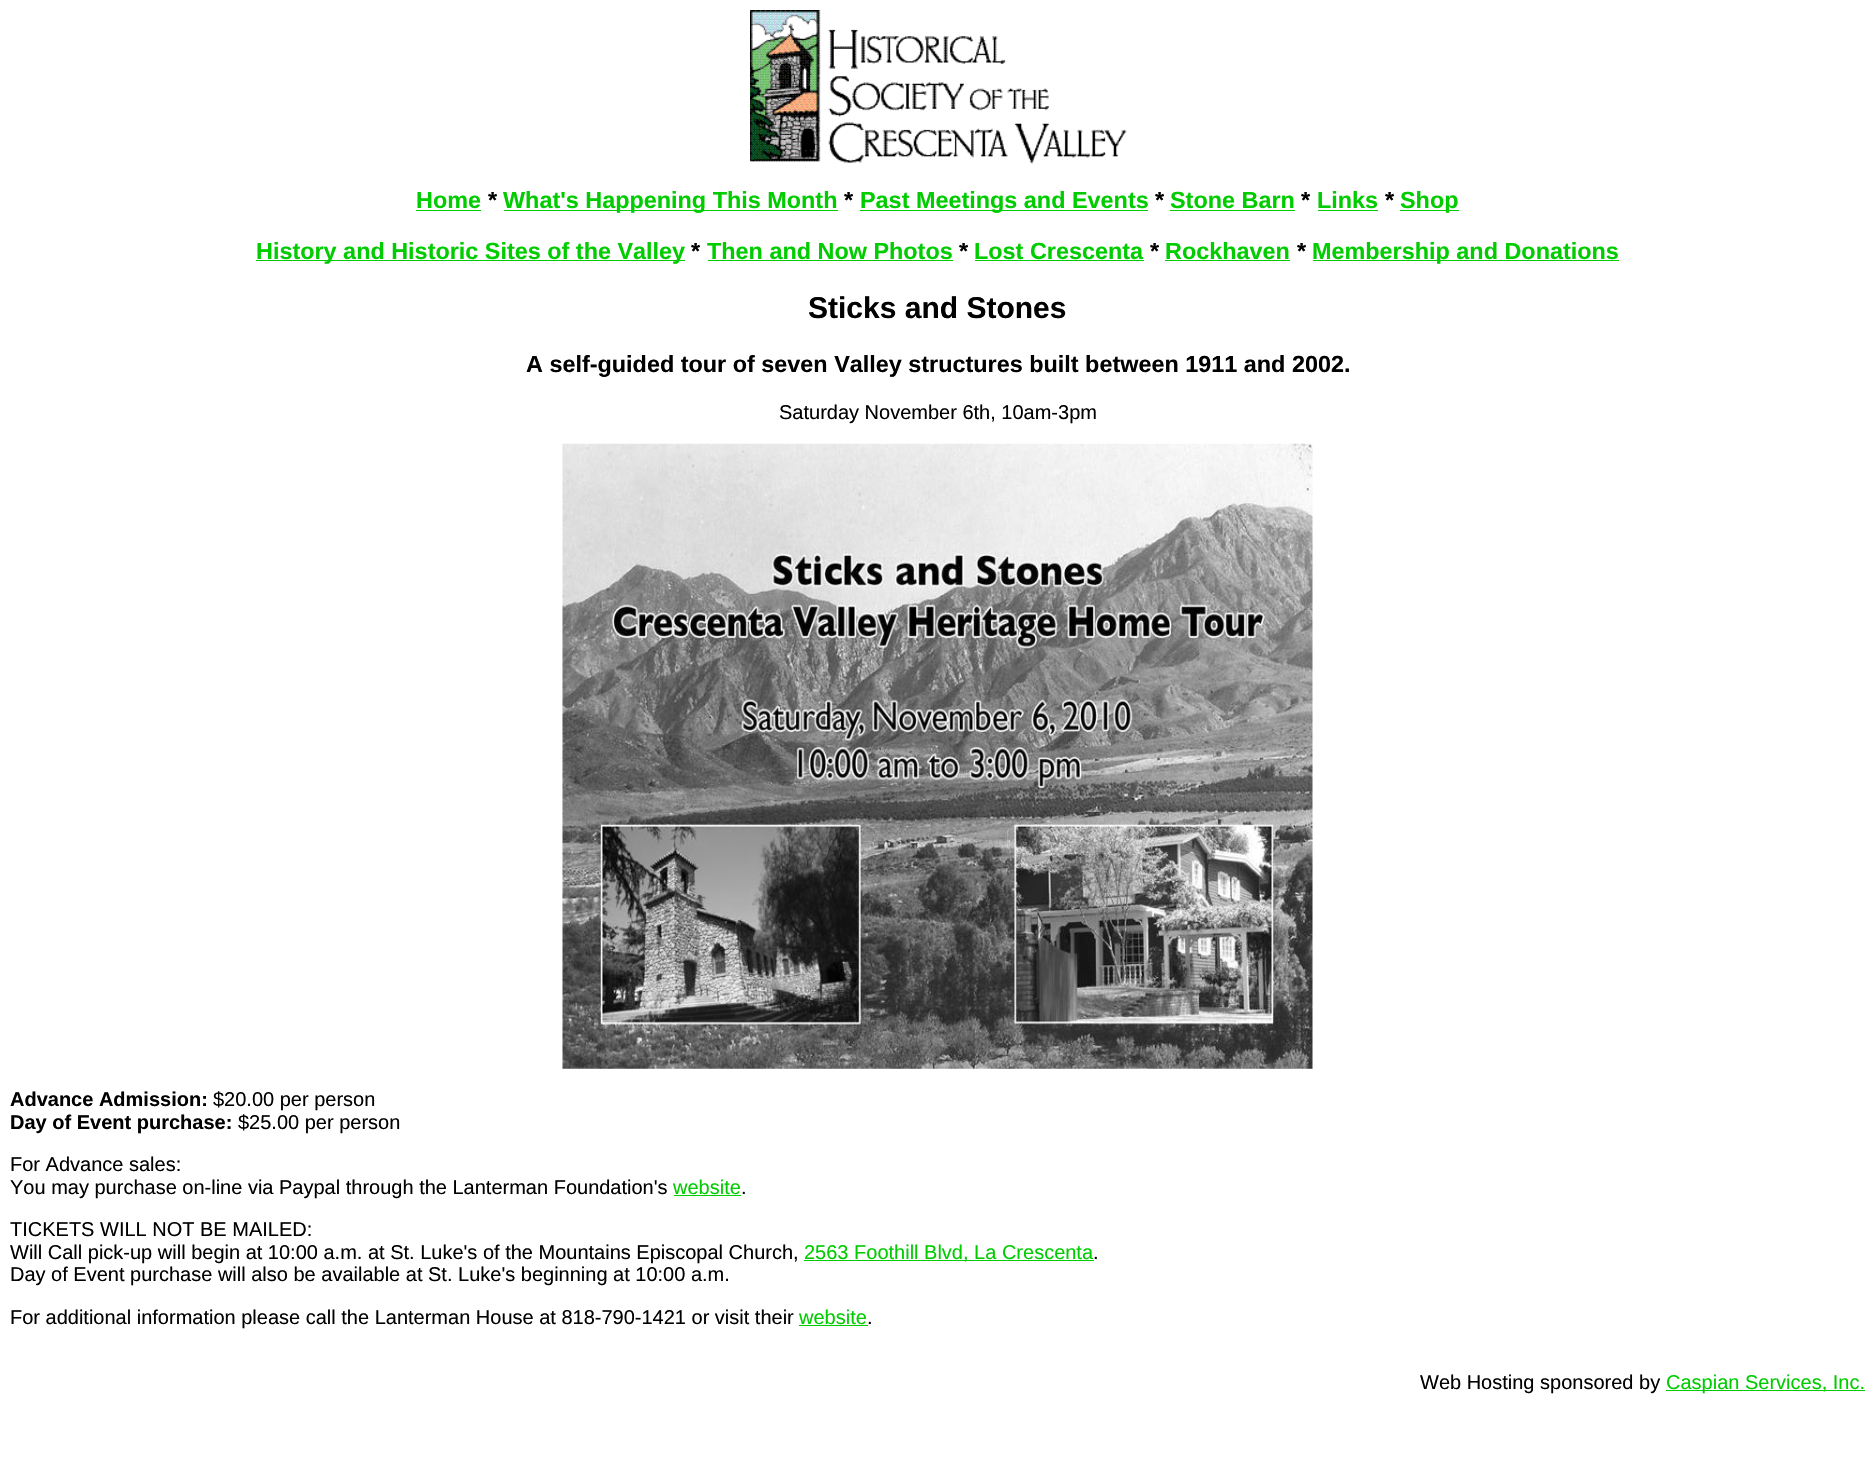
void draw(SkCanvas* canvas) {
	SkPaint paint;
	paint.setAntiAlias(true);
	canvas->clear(0xffffffff);
	canvas->drawImageRect(SkImages::DeferredFromEncodedData(SkData::MakeFromFileName("img1.png")), SkRect::MakeXYWH(750, 10, 377, 154), SkSamplingOptions());
	SkFont f1(fontMgr->matchFamilyStyle("Liberation Sans", SkFontStyle::Bold()), 23.4);
	f1.setSubpixel(true);
	paint.setColor(0xff00cc00);
	canvas->drawString("Home", 416, 208, f1, paint);
	canvas->drawRect(SkRect::MakeXYWH(416, 210, 65, 1), paint);
	paint.setColor(0xff000000);
	canvas->drawString("*", 488, 208, f1, paint);
	paint.setColor(0xff00cc00);
	canvas->drawRect(SkRect::MakeXYWH(504, 210, 334, 1), paint);
	canvas->drawString("What's Happening This Month", 503, 208, f1, paint);
	paint.setColor(0xff000000);
	canvas->drawString("*", 844, 208, f1, paint);
	paint.setColor(0xff00cc00);
	canvas->drawRect(SkRect::MakeXYWH(860, 210, 288, 1), paint);
	canvas->drawString("Past Meetings and Events", 860, 208, f1, paint);
	paint.setColor(0xff000000);
	canvas->drawString("*", 1155, 208, f1, paint);
	paint.setColor(0xff00cc00);
	canvas->drawString("Stone Barn", 1170, 208, f1, paint);
	canvas->drawRect(SkRect::MakeXYWH(1170, 210, 125, 1), paint);
	paint.setColor(0xff000000);
	canvas->drawString("*", 1301, 208, f1, paint);
	paint.setColor(0xff00cc00);
	canvas->drawString("Links", 1317, 208, f1, paint);
	canvas->drawRect(SkRect::MakeXYWH(1318, 210, 60, 1), paint);
	paint.setColor(0xff000000);
	canvas->drawString("*", 1385, 208, f1, paint);
	paint.setColor(0xff00cc00);
	canvas->drawRect(SkRect::MakeXYWH(1400, 210, 59, 1), paint);
	canvas->drawString("Shop", 1400, 208, f1, paint);
	canvas->drawRect(SkRect::MakeXYWH(256, 260, 429, 1), paint);
	canvas->drawString("History and Historic Sites of the Valley", 256, 259, f1, paint);
	paint.setColor(0xff000000);
	canvas->drawString("*", 691, 259, f1, paint);
	paint.setColor(0xff00cc00);
	canvas->drawString("Then and Now Photos", 707, 259, f1, paint);
	canvas->drawRect(SkRect::MakeXYWH(708, 260, 245, 1), paint);
	paint.setColor(0xff000000);
	canvas->drawString("*", 959, 259, f1, paint);
	paint.setColor(0xff00cc00);
	canvas->drawString("Lost Crescenta", 974, 259, f1, paint);
	canvas->drawRect(SkRect::MakeXYWH(975, 260, 169, 1), paint);
	paint.setColor(0xff000000);
	canvas->drawString("*", 1150, 259, f1, paint);
	paint.setColor(0xff00cc00);
	canvas->drawString("Rockhaven", 1165, 259, f1, paint);
	canvas->drawRect(SkRect::MakeXYWH(1165, 260, 125, 1), paint);
	paint.setColor(0xff000000);
	canvas->drawString("*", 1297, 259, f1, paint);
	paint.setColor(0xff00cc00);
	canvas->drawRect(SkRect::MakeXYWH(1313, 260, 306, 1), paint);
	canvas->drawString("Membership and Donations", 1312, 259, f1, paint);
	SkFont f2(fontMgr->matchFamilyStyle("Liberation Sans", SkFontStyle::Bold()), 30);
	f2.setSubpixel(true);
	paint.setColor(0xff000000);
	canvas->drawString("Sticks and Stones", 808, 318, f2, paint);
	canvas->drawString("A self-guided tour of seven Valley structures built between 1911 and 2002.", 526, 372, f1, paint);
	SkFont f3(fontMgr->matchFamilyStyle("Liberation Sans", SkFontStyle::Normal()), 20);
	f3.setSubpixel(true);
	canvas->drawString("Saturday November 6th, 10am-3pm", 779, 419, f3, paint);
	canvas->drawImageRect(SkImages::DeferredFromEncodedData(SkData::MakeFromFileName("img2.png")), SkRect::MakeXYWH(562, 443, 751, 626), SkSamplingOptions());
	SkFont f4(fontMgr->matchFamilyStyle("Liberation Sans", SkFontStyle::Bold()), 20);
	f4.setSubpixel(true);
	canvas->drawString("Advance Admission:", 10, 1106, f4, paint);
	canvas->drawString("$20.00 per person", 213, 1106, f3, paint);
	canvas->drawString("Day of Event purchase:", 10, 1129, f4, paint);
	canvas->drawString("$25.00 per person", 238, 1129, f3, paint);
	canvas->drawString("For Advance sales:", 10, 1171, f3, paint);
	canvas->drawString("You may purchase on-line via Paypal through the Lanterman Foundation's", 10, 1194, f3, paint);
	paint.setColor(0xff00cc00);
	canvas->drawString("website", 673, 1194, f3, paint);
	canvas->drawRect(SkRect::MakeXYWH(674, 1195, 67, 1), paint);
	paint.setColor(0xff000000);
	canvas->drawString(".", 741, 1194, f3, paint);
	canvas->drawString("TICKETS WILL NOT BE MAILED:", 10, 1236, f3, paint);
	canvas->drawString("Will Call pick-up will begin at 10:00 a.m. at St. Luke's of the Mountains Episcopal Church,", 10, 1259, f3, paint);
	paint.setColor(0xff00cc00);
	canvas->drawRect(SkRect::MakeXYWH(804, 1260, 290, 1), paint);
	canvas->drawString("2563 Foothill Blvd, La Crescenta", 804, 1259, f3, paint);
	paint.setColor(0xff000000);
	canvas->drawString(".", 1093, 1259, f3, paint);
	canvas->drawString("Day of Event purchase will also be available at St. Luke's beginning at 10:00 a.m.", 10, 1281, f3, paint);
	canvas->drawString("For additional information please call the Lanterman House at 818-790-1421 or visit their", 10, 1324, f3, paint);
	paint.setColor(0xff00cc00);
	canvas->drawString("website", 799, 1324, f3, paint);
	canvas->drawRect(SkRect::MakeXYWH(799, 1325, 69, 1), paint);
	paint.setColor(0xff000000);
	canvas->drawString(".", 867, 1324, f3, paint);
	canvas->drawString("Web Hosting sponsored by", 1420, 1389, f3, paint);
	paint.setColor(0xff00cc00);
	canvas->drawRect(SkRect::MakeXYWH(1666, 1390, 199, 1), paint);
	canvas->drawString("Caspian Services, Inc.", 1666, 1389, f3, paint);
}
